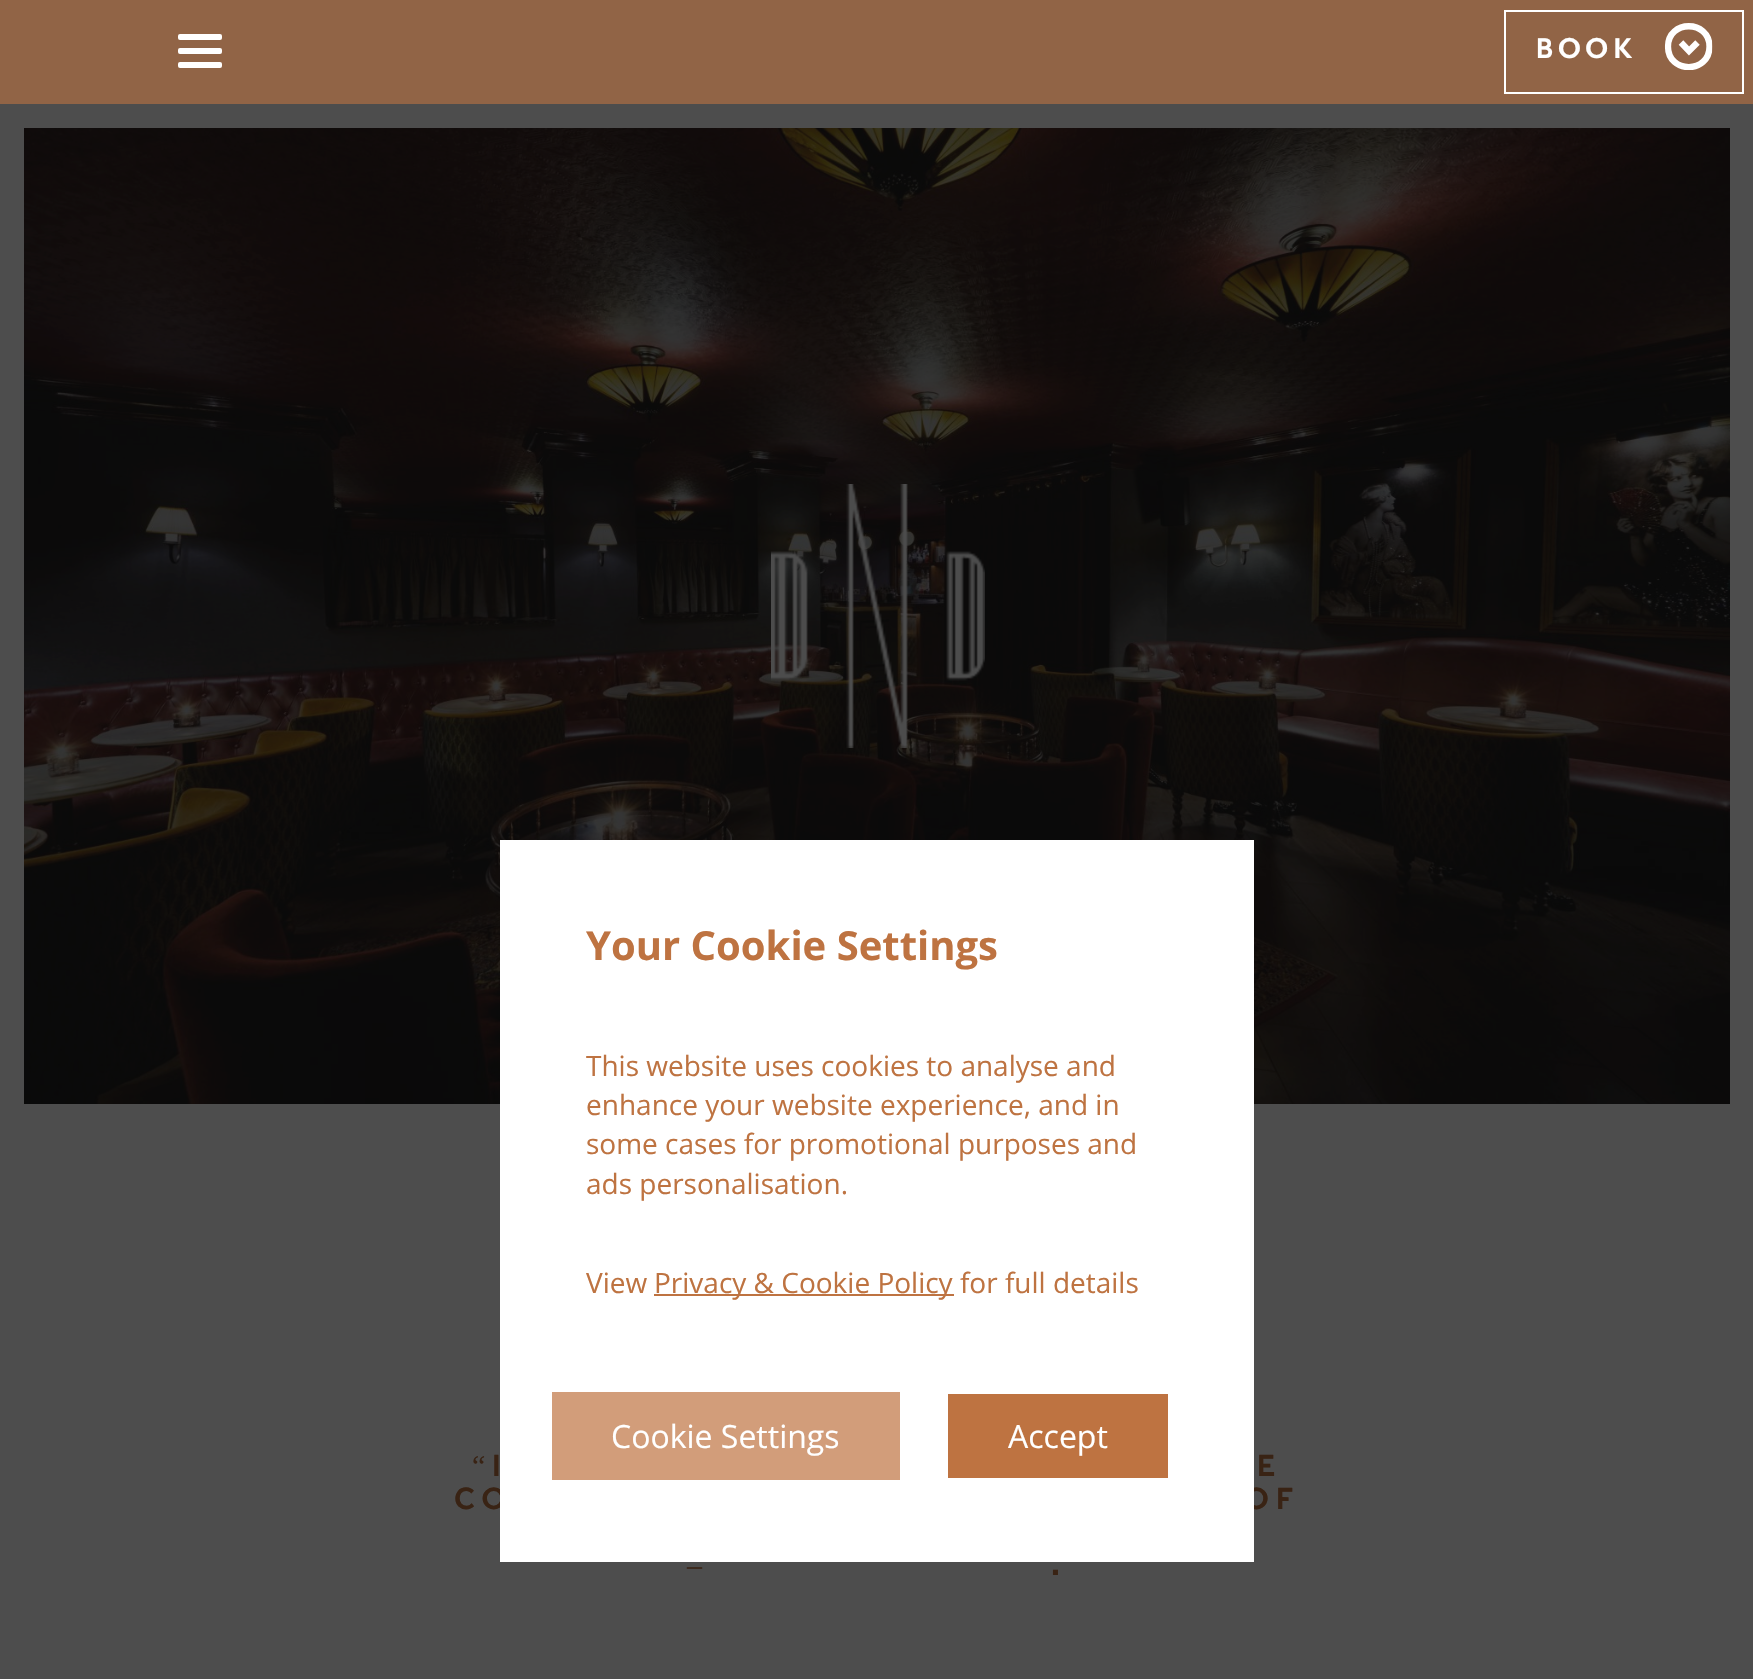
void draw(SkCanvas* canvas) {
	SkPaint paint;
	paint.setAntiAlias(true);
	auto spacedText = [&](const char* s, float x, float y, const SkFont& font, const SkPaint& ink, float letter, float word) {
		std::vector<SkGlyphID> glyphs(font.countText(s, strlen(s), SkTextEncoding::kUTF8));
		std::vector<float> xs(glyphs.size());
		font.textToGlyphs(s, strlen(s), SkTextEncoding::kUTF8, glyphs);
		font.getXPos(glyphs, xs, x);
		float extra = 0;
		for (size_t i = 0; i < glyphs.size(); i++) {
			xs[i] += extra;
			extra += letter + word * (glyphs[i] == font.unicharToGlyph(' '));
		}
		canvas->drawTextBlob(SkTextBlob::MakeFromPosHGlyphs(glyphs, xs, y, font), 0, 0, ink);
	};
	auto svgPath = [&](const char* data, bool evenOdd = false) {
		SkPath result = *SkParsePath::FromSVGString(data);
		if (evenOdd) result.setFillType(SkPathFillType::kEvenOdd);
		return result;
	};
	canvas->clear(0xff4d4d4d);
	paint.setColor(0xff916446);
	canvas->drawRect(SkRect::MakeXYWH(0, 0, 1753, 104), paint);
	paint.setColor(0xffffffff);
	canvas->drawRoundRect(SkRect::MakeXYWH(178, 34, 44, 6), 2, 2, paint);
	canvas->drawRoundRect(SkRect::MakeXYWH(178, 48, 44, 6), 2, 2, paint);
	canvas->drawRoundRect(SkRect::MakeXYWH(178, 62, 44, 6), 2, 2, paint);
	paint.setStroke(true);
	paint.setStrokeWidth(2);
	canvas->drawRect(SkRect::MakeXYWH(1505, 11, 238, 82), paint);
	SkFont f1(fontMgr->matchFamilyStyle("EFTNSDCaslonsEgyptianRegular", SkFontStyle::Normal()), 28);
	f1.setSubpixel(true);
	paint.setStroke(false);
	spacedText("BOOK", 1535, 58, f1, paint, 4, 0);
	paint.setStroke(true);
	paint.setStrokeWidth(6.3);
	canvas->drawPath(svgPath("M1697.5 42.5L1689 51L1681 42.5"), paint);
	canvas->save();
	canvas->clipPath(svgPath("M1664.5 70V22H1712.5V70Z"), true);
	canvas->clipPath(svgPath("M1664.5 70V22H1712.5V70Z"), true);
	canvas->drawPath(svgPath("M1668 46.5C1668 19.5 1709.5 19.5 1709.5 46.5C1709.5 74 1668 74 1668 46.5Z"), paint);
	canvas->restore();
	paint.setStroke(false);
	paint.setColor(0xff151515);
	canvas->drawRect(SkRect::MakeXYWH(24, 128, 1706, 976), paint);
	canvas->drawImageRect(SkImages::DeferredFromEncodedData(SkData::MakeFromFileName("img1.png")), SkRect::MakeXYWH(24, 128, 1706, 976), SkSamplingOptions());
	canvas->drawImageRect(SkImages::DeferredFromEncodedData(SkData::MakeFromFileName("img2.png")), SkRect::MakeXYWH(771, 484, 214, 264), SkSamplingOptions());
	SkFont f2(fontMgr->matchFamilyStyle("EFTNSDCaslonsEgyptianRegular", SkFontStyle::Normal()), 30);
	f2.setSubpixel(true);
	paint.setColor(0xff392314);
	spacedText("CO", 454, 1509, f2, paint, 6, 0);
	spacedText("OF", 1244, 1509, f2, paint, 6, 0);
	paint.setColor(0xffffffff);
	canvas->drawRect(SkRect::MakeXYWH(500, 840, 754, 722), paint);
	SkFont f3(fontMgr->matchFamilyStyle("Open Sans", SkFontStyle::Bold()), 40);
	f3.setSubpixel(true);
	paint.setColor(0xffbe7341);
	canvas->drawString("Your Cookie Settings", 586, 960, f3, paint);
	SkFont f4(fontMgr->matchFamilyStyle("Open Sans", SkFontStyle::Normal()), 28);
	f4.setSubpixel(true);
	canvas->drawString("This website uses cookies to analyse and", 586, 1076, f4, paint);
	canvas->drawString("enhance your website experience, and in", 586, 1115, f4, paint);
	canvas->drawString("some cases for promotional purposes and", 586, 1154, f4, paint);
	canvas->drawString("ads personalisation.", 586, 1194, f4, paint);
	canvas->drawString("View", 586, 1293, f4, paint);
	canvas->drawRect(SkRect::MakeXYWH(654, 1294, 300, 2), paint);
	canvas->drawString("Privacy & Cookie Policy for full details", 654, 1293, f4, paint);
	paint.setColor(0xffd29d7a);
	canvas->drawRect(SkRect::MakeXYWH(552, 1392, 348, 88), paint);
	SkFont f5(fontMgr->matchFamilyStyle("Open Sans", SkFontStyle::Normal()), 32);
	f5.setSubpixel(true);
	paint.setColor(0xffffffff);
	canvas->drawString("Cookie Settings", 611, 1448, f5, paint);
	paint.setColor(0xffbe7341);
	canvas->drawRect(SkRect::MakeXYWH(948, 1394, 220, 84), paint);
	paint.setColor(0xffffffff);
	canvas->drawString("Accept", 1008, 1448, f5, paint);
	SkFont f6(fontMgr->matchFamilyStyle("Liberation Serif", SkFontStyle::Normal()), 30);
	f6.setSubpixel(true);
	paint.setColor(0xff392314);
	spacedText("“", 472, 1476, f6, paint, 6, 0);
	spacedText("I", 491, 1476, f2, paint, 6, 0);
	spacedText("E", 1256, 1476, f2, paint, 6, 0);
	spacedText("–", 687, 1575, f6, paint, 6, 0);
	spacedText(".", 1050, 1575, f2, paint, 6, 0);
}
